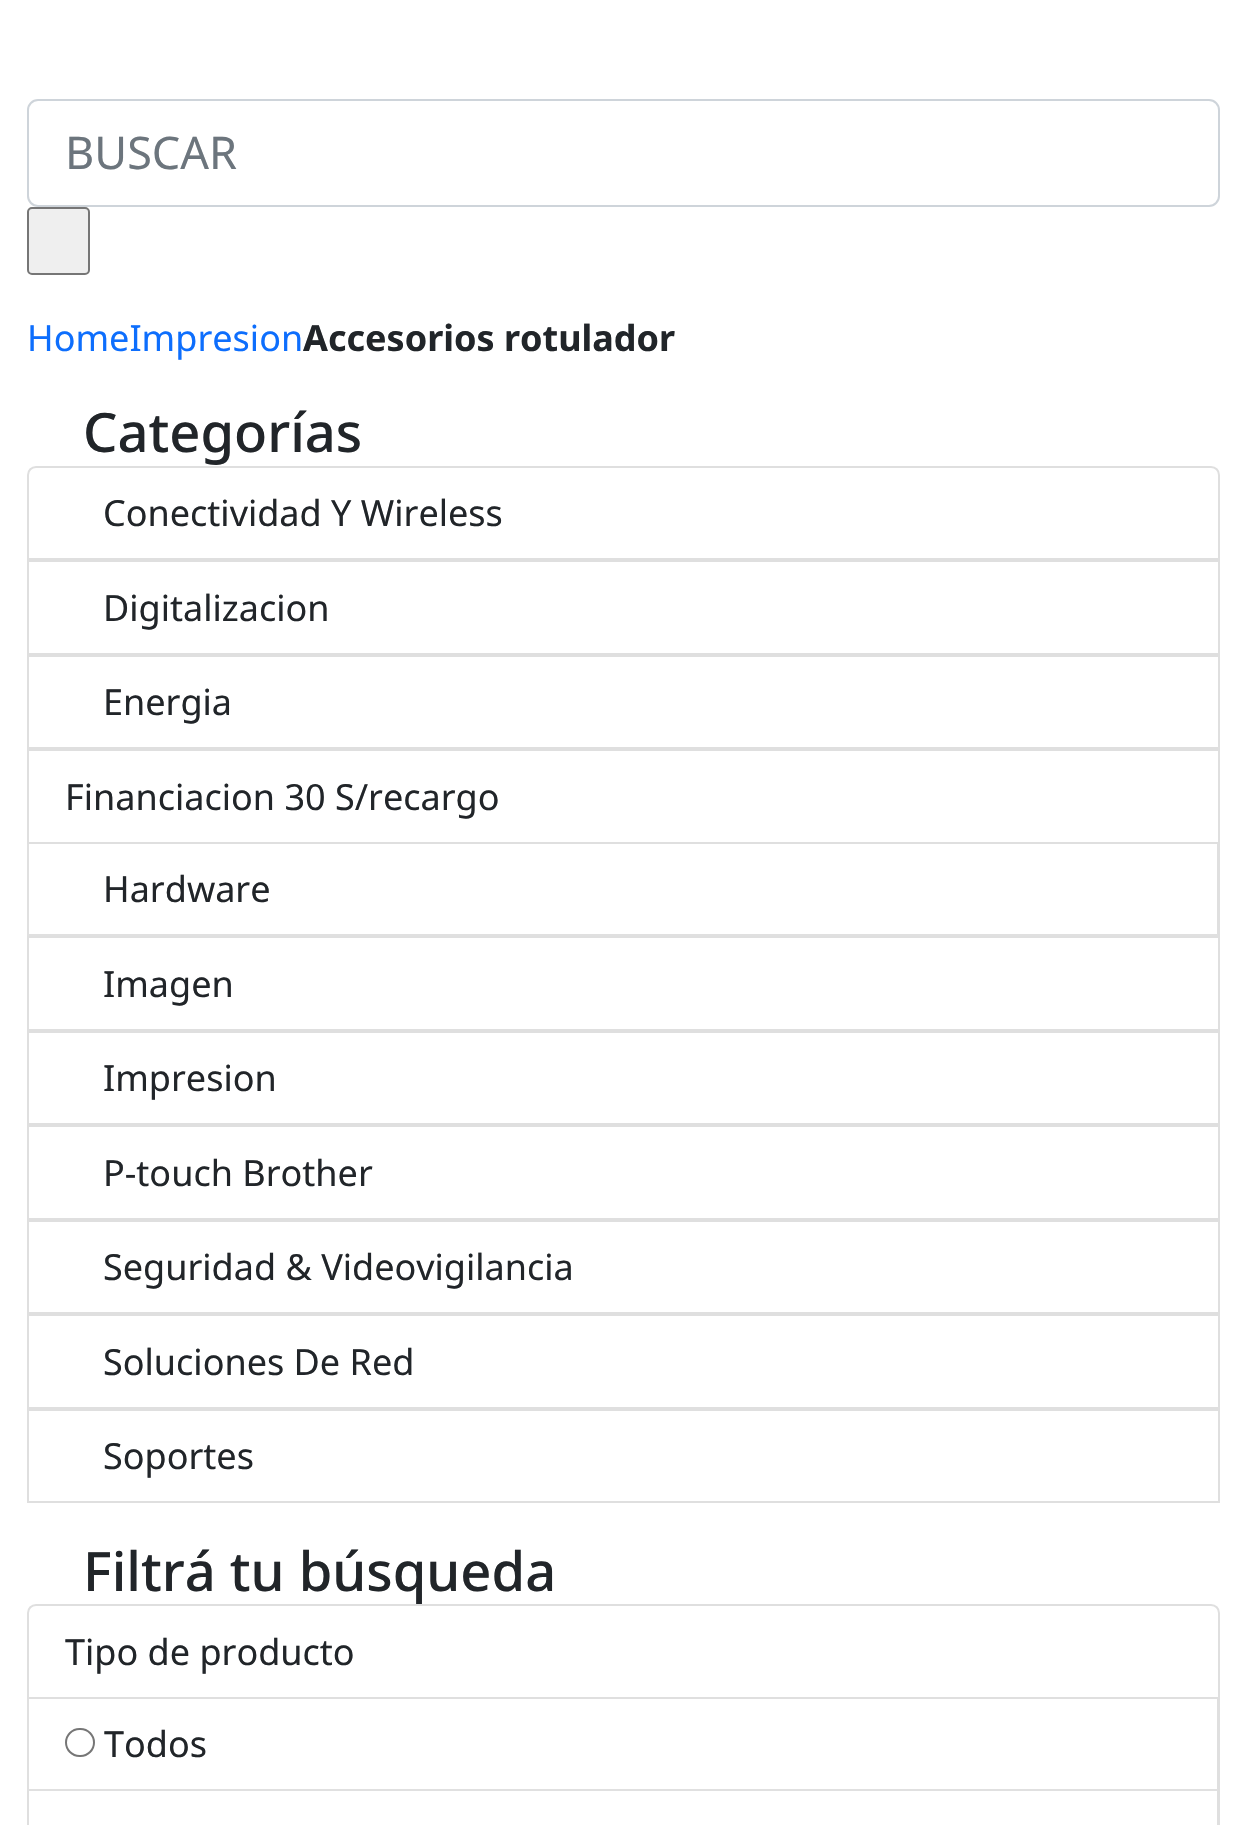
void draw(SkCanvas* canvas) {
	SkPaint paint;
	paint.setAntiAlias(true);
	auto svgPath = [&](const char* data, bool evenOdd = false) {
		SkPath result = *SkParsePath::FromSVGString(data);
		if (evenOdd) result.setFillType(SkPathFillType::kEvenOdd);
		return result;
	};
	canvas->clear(0xffffffff);
	paint.setStroke(true);
	paint.setStrokeWidth(2);
	paint.setColor(0xffced4da);
	canvas->drawRoundRect(SkRect::MakeXYWH(28, 100, 1191, 106), 10, 10, paint);
	SkFont f1(fontMgr->matchFamilyStyle("Noto Sans", SkFontStyle::Normal()), 45);
	f1.setSubpixel(true);
	paint.setStroke(false);
	paint.setColor(0xff6c757d);
	canvas->drawString("BUSCAR", 65, 169, f1, paint);
	paint.setColor(0xffefefef);
	canvas->drawRoundRect(SkRect::MakeXYWH(28, 208, 61, 66), 4, 4, paint);
	paint.setStroke(true);
	paint.setColor(0xff767676);
	canvas->drawRoundRect(SkRect::MakeXYWH(28, 208, 61, 66), 4, 4, paint);
	SkFont f2(fontMgr->matchFamilyStyle("Noto Sans", SkFontStyle::Normal()), 36);
	f2.setSubpixel(true);
	paint.setStroke(false);
	paint.setColor(0xff0d6efd);
	canvas->drawString("HomeImpresion", 27, 351, f2, paint);
	SkFont f3(fontMgr->matchFamilyStyle("Noto Sans", SkFontStyle::Bold()), 36);
	f3.setSubpixel(true);
	paint.setColor(0xff212529);
	canvas->drawString("Accesorios rotulador", 303, 351, f3, paint);
	SkFont f4(fontMgr->matchFamilyStyle("Noto Sans", SkFontStyle(500, SkFontStyle::kNormal_Width, SkFontStyle::kUpright_Slant)), 54.25);
	f4.setSubpixel(true);
	canvas->drawString("Categorías", 83, 452, f4, paint);
	paint.setStroke(true);
	paint.setColor(0xffdfdfdf);
	canvas->drawPath(svgPath("M36 467H1211C1215.5 467 1219 470.5 1219 475V559H28V475C28 470.5 31.5 467 36 467Z"), paint);
	paint.setStroke(false);
	paint.setColor(0xff212529);
	canvas->drawString("Conectividad Y Wireless", 103, 526, f2, paint);
	paint.setStroke(true);
	paint.setColor(0xffdfdfdf);
	canvas->drawRect(SkRect::MakeXYWH(28, 561, 1191, 93), paint);
	paint.setStroke(false);
	paint.setColor(0xff212529);
	canvas->drawString("Digitalizacion", 103, 621, f2, paint);
	paint.setStroke(true);
	paint.setColor(0xffdfdfdf);
	canvas->drawRect(SkRect::MakeXYWH(28, 656, 1191, 92), paint);
	paint.setStroke(false);
	paint.setColor(0xff212529);
	canvas->drawString("Energia", 103, 715, f2, paint);
	paint.setStroke(true);
	paint.setColor(0xffdfdfdf);
	canvas->drawRect(SkRect::MakeXYWH(28, 750, 1191, 93), paint);
	paint.setStroke(false);
	paint.setColor(0xff212529);
	canvas->drawString("Financiacion 30 S/recargo", 65, 810, f2, paint);
	paint.setColor(0xffdfdfdf);
	canvas->drawPath(svgPath("M1220 844V936L1217 934V844Z"), paint);
	paint.setColor(0x1f000000);
	canvas->drawPath(svgPath("M1220 936H27L29 934H1217Z"), paint);
	canvas->drawPath(svgPath("M27 936V844H29V934Z"), paint);
	paint.setColor(0xff212529);
	canvas->drawString("Hardware", 103, 902, f2, paint);
	paint.setStroke(true);
	paint.setColor(0xffdfdfdf);
	canvas->drawRect(SkRect::MakeXYWH(28, 937, 1191, 93), paint);
	paint.setStroke(false);
	paint.setColor(0xff212529);
	canvas->drawString("Imagen", 103, 997, f2, paint);
	paint.setStroke(true);
	paint.setColor(0xffdfdfdf);
	canvas->drawRect(SkRect::MakeXYWH(28, 1032, 1191, 92), paint);
	paint.setStroke(false);
	paint.setColor(0xff212529);
	canvas->drawString("Impresion", 103, 1091, f2, paint);
	paint.setStroke(true);
	paint.setColor(0xffdfdfdf);
	canvas->drawRect(SkRect::MakeXYWH(28, 1126, 1191, 93), paint);
	paint.setStroke(false);
	paint.setColor(0xff212529);
	canvas->drawString("P-touch Brother", 103, 1186, f2, paint);
	paint.setStroke(true);
	paint.setColor(0xffdfdfdf);
	canvas->drawRect(SkRect::MakeXYWH(28, 1221, 1191, 92), paint);
	paint.setStroke(false);
	paint.setColor(0xff212529);
	canvas->drawString("Seguridad & Videovigilancia", 103, 1280, f2, paint);
	paint.setStroke(true);
	paint.setColor(0xffdfdfdf);
	canvas->drawRect(SkRect::MakeXYWH(28, 1315, 1191, 93), paint);
	paint.setStroke(false);
	paint.setColor(0xff212529);
	canvas->drawString("Soluciones De Red", 103, 1375, f2, paint);
	paint.setStroke(true);
	paint.setColor(0xffdfdfdf);
	canvas->drawRect(SkRect::MakeXYWH(28, 1410, 1191, 92), paint);
	paint.setStroke(false);
	paint.setColor(0xff212529);
	canvas->drawString("Soportes", 103, 1469, f2, paint);
	canvas->drawString("Filtrá tu búsqueda", 83, 1591, f4, paint);
	paint.setStroke(true);
	paint.setColor(0xffdfdfdf);
	canvas->drawPath(svgPath("M36 1605H1211C1215.5 1605 1219 1608.5 1219 1613V1698H28V1613C28 1608.5 31.5 1605 36 1605Z"), paint);
	paint.setStroke(false);
	paint.setColor(0xff212529);
	canvas->drawString("Tipo de producto", 65, 1665, f2, paint);
	paint.setColor(0xffdfdfdf);
	canvas->drawPath(svgPath("M1220 1699V1791L1217 1789V1699Z"), paint);
	paint.setColor(0x1f000000);
	canvas->drawPath(svgPath("M1220 1791H27L29 1789H1217Z"), paint);
	canvas->drawPath(svgPath("M27 1791V1699H29V1789Z"), paint);
	paint.setStroke(true);
	paint.setColor(0xff767676);
	canvas->drawRoundRect(SkRect::MakeXYWH(66, 1729, 28, 27), 13.5, 13.5, paint);
	paint.setStroke(false);
	paint.setColor(0xff212529);
	canvas->drawString("Todos", 104, 1757, f2, paint);
	paint.setColor(0xffdfdfdf);
	canvas->drawPath(svgPath("M1220 1791V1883L1217 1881V1791Z"), paint);
	canvas->drawPath(svgPath("M27 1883V1791H29V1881Z"), paint);
}
